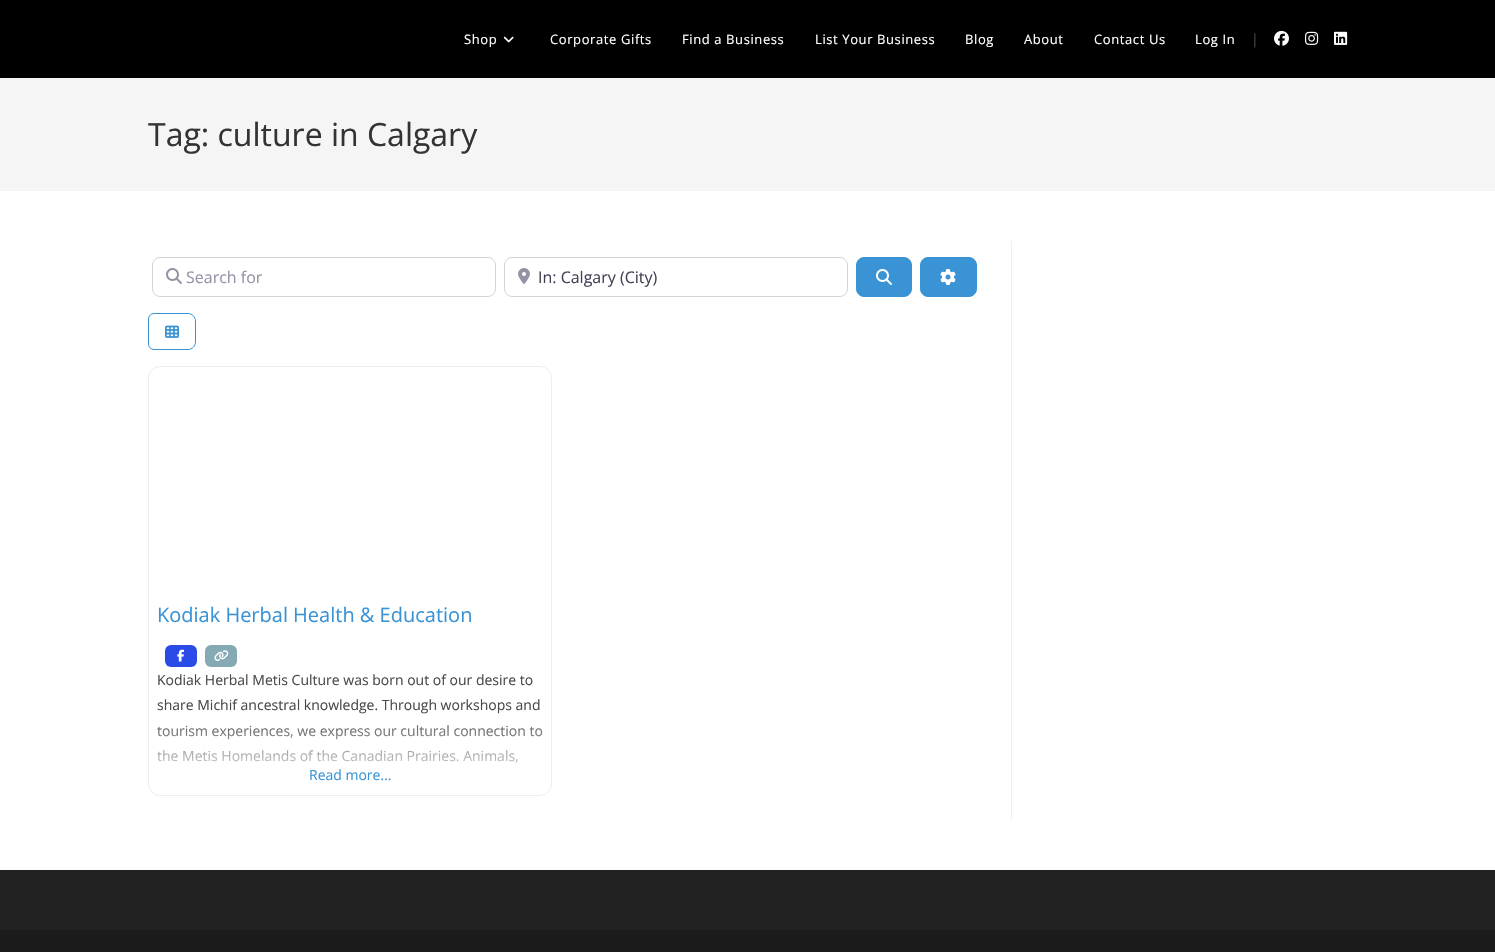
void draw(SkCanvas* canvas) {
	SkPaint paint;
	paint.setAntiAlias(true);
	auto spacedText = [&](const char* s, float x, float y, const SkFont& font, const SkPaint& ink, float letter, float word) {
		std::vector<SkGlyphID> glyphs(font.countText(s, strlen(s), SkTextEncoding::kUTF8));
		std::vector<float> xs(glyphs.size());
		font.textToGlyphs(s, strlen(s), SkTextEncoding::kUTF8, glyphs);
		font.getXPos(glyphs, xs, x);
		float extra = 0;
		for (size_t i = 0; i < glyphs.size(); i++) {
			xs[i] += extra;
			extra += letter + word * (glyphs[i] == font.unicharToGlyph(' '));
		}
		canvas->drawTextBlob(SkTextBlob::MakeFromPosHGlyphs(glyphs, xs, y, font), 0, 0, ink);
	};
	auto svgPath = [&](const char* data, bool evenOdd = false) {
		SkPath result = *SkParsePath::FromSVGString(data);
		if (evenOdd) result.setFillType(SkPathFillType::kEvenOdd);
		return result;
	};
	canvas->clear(0xffffffff);
	paint.setColor(0xff000000);
	canvas->drawRect(SkRect::MakeXYWH(0, 0, 1495, 78), paint);
	SkFont f1(fontMgr->matchFamilyStyle("Open Sans", SkFontStyle::Normal()), 13);
	f1.setSubpixel(true);
	paint.setColor(0xffffffff);
	spacedText("Shop", 464, 44, f1, paint, 0.6, 0);
	canvas->drawImageRect(SkImages::DeferredFromEncodedData(SkData::MakeFromFileName("img1.png")), SkRect::MakeXYWH(503, 36, 11, 7), SkSamplingOptions());
	spacedText("Corporate Gifts", 550, 44, f1, paint, 0.6, 0);
	spacedText("Find a Business", 682, 44, f1, paint, 0.6, 0);
	spacedText("List Your Business", 815, 44, f1, paint, 0.6, 0);
	spacedText("Blog", 965, 44, f1, paint, 0.6, 0);
	spacedText("About", 1024, 44, f1, paint, 0.6, 0);
	spacedText("Contact Us", 1094, 44, f1, paint, 0.6, 0);
	spacedText("Log In", 1195, 44, f1, paint, 0.6, 0);
	SkFont f2(fontMgr->matchFamilyStyle("Open Sans", SkFontStyle::Normal()), 14);
	f2.setSubpixel(true);
	paint.setColor(0xff4a4a4a);
	canvas->drawString("|", 1251, 44, f2, paint);
	canvas->drawImageRect(SkImages::DeferredFromEncodedData(SkData::MakeFromFileName("img2.png")), SkRect::MakeXYWH(1274, 30, 15, 16), SkSamplingOptions());
	canvas->drawImageRect(SkImages::DeferredFromEncodedData(SkData::MakeFromFileName("img3.png")), SkRect::MakeXYWH(1305, 31, 14, 14), SkSamplingOptions());
	canvas->drawImageRect(SkImages::DeferredFromEncodedData(SkData::MakeFromFileName("img4.png")), SkRect::MakeXYWH(1334, 31, 14, 14), SkSamplingOptions());
	paint.setColor(0xfff5f5f5);
	canvas->drawRect(SkRect::MakeXYWH(0, 78, 1495, 113), paint);
	SkFont f3(fontMgr->matchFamilyStyle("Open Sans", SkFontStyle::Normal()), 32);
	f3.setSubpixel(true);
	paint.setColor(0xff333333);
	canvas->drawString("Tag: culture in Calgary", 148, 146, f3, paint);
	paint.setColor(0xfff1f1f1);
	canvas->drawRect(SkRect::MakeXYWH(1011, 241, 1, 579), paint);
	paint.setStroke(true);
	paint.setStrokeWidth(1);
	paint.setColor(0xffd5d2dc);
	canvas->drawRoundRect(SkRect::MakeXYWH(152.5, 257.5, 343, 39), 7.5, 7.5, paint);
	canvas->drawImageRect(SkImages::DeferredFromEncodedData(SkData::MakeFromFileName("img5.png")), SkRect::MakeXYWH(166, 268, 16, 16), SkSamplingOptions());
	SkFont f4(fontMgr->matchFamilyStyle("Open Sans", SkFontStyle::Normal()), 16);
	f4.setSubpixel(true);
	paint.setStroke(false);
	paint.setColor(0xff9691a4);
	canvas->drawString("Search for", 186, 283, f4, paint);
	paint.setStroke(true);
	paint.setColor(0xffd5d2dc);
	canvas->drawRoundRect(SkRect::MakeXYWH(504.5, 257.5, 343, 39), 7.5, 7.5, paint);
	canvas->drawImageRect(SkImages::DeferredFromEncodedData(SkData::MakeFromFileName("img6.png")), SkRect::MakeXYWH(518, 268, 12, 16), SkSamplingOptions());
	paint.setStroke(false);
	paint.setColor(0xff454056);
	canvas->drawString("In: Calgary (City)", 538, 283, f4, paint);
	paint.setColor(0xff3993d5);
	canvas->drawRoundRect(SkRect::MakeXYWH(856.5, 257.5, 55, 39), 7.5, 7.5, paint);
	paint.setStroke(true);
	canvas->drawRoundRect(SkRect::MakeXYWH(856.5, 257.5, 55, 39), 7.5, 7.5, paint);
	canvas->drawImageRect(SkImages::DeferredFromEncodedData(SkData::MakeFromFileName("img7.png")), SkRect::MakeXYWH(876, 269, 16, 16), SkSamplingOptions());
	paint.setStroke(false);
	canvas->drawRoundRect(SkRect::MakeXYWH(920.5, 257.5, 56, 39), 7.5, 7.5, paint);
	paint.setStroke(true);
	canvas->drawRoundRect(SkRect::MakeXYWH(920.5, 257.5, 56, 39), 7.5, 7.5, paint);
	canvas->drawImageRect(SkImages::DeferredFromEncodedData(SkData::MakeFromFileName("img8.png")), SkRect::MakeXYWH(940, 269, 16, 16), SkSamplingOptions());
	canvas->drawPath(svgPath("M154 313.5H188C192 313.5 195.5 317 195.5 321V342C195.5 346 192 349.5 188 349.5H154C151 349.5 148.5 347 148.5 344V319C148.5 316 151 313.5 154 313.5Z"), paint);
	canvas->drawImageRect(SkImages::DeferredFromEncodedData(SkData::MakeFromFileName("img9.png")), SkRect::MakeXYWH(165, 325, 14, 13), SkSamplingOptions());
	paint.setColor(0xffefecf3);
	canvas->drawRoundRect(SkRect::MakeXYWH(148.5, 366.5, 403, 429), 11.5, 11.5, paint);
	SkFont f5(fontMgr->matchFamilyStyle("Open Sans", SkFontStyle::Normal()), 20);
	f5.setSubpixel(true);
	paint.setStroke(false);
	paint.setColor(0xff3993d5);
	canvas->drawString("Kodiak Herbal Health & Education", 157, 622, f5, paint);
	paint.setColor(0xff2b4be8);
	canvas->drawRoundRect(SkRect::MakeXYWH(165, 645, 32, 22), 6, 6, paint);
	canvas->drawImageRect(SkImages::DeferredFromEncodedData(SkData::MakeFromFileName("img10.png")), SkRect::MakeXYWH(177, 649, 8, 13), SkSamplingOptions());
	paint.setColor(0xff85a9b5);
	canvas->drawRoundRect(SkRect::MakeXYWH(205, 645, 32, 22), 6, 6, paint);
	canvas->drawImageRect(SkImages::DeferredFromEncodedData(SkData::MakeFromFileName("img11.png")), SkRect::MakeXYWH(214, 650, 15, 11), SkSamplingOptions());
	paint.setColor(0xff4a4a4a);
	canvas->drawString("Kodiak Herbal Metis Culture was born out of our desire to", 157, 685, f2, paint);
	canvas->drawString("share Michif ancestral knowledge. Through workshops and", 157, 710, f2, paint);
	canvas->drawString("tourism experiences, we express our cultural connection to", 157, 736, f2, paint);
	canvas->drawString("the Metis Homelands of the Canadian Prairies. Animals,", 157, 761, f2, paint);
	{
		const SkColor colors[] = {0x00ffffff, 0xffffffff};
		const float stops[] = {0, 1};
		const SkPoint ends[] = {{350, 714}, {350, 787}};
		paint.setShader(SkGradientShader::MakeLinear(ends, colors, stops, 2, SkTileMode::kClamp));
		paint.setAlpha(255);
	}
	canvas->drawRect(SkRect::MakeXYWH(157, 725, 385, 38), paint);
	paint.setShader(nullptr);
	paint.setColor(0xff3993d5);
	canvas->drawString("Read more…", 309, 780, f2, paint);
	paint.setColor(0xff222222);
	canvas->drawRect(SkRect::MakeXYWH(0, 870, 1495, 60), paint);
	paint.setColor(0xff1b1b1b);
	canvas->drawRect(SkRect::MakeXYWH(0, 930, 1495, 22), paint);
}
